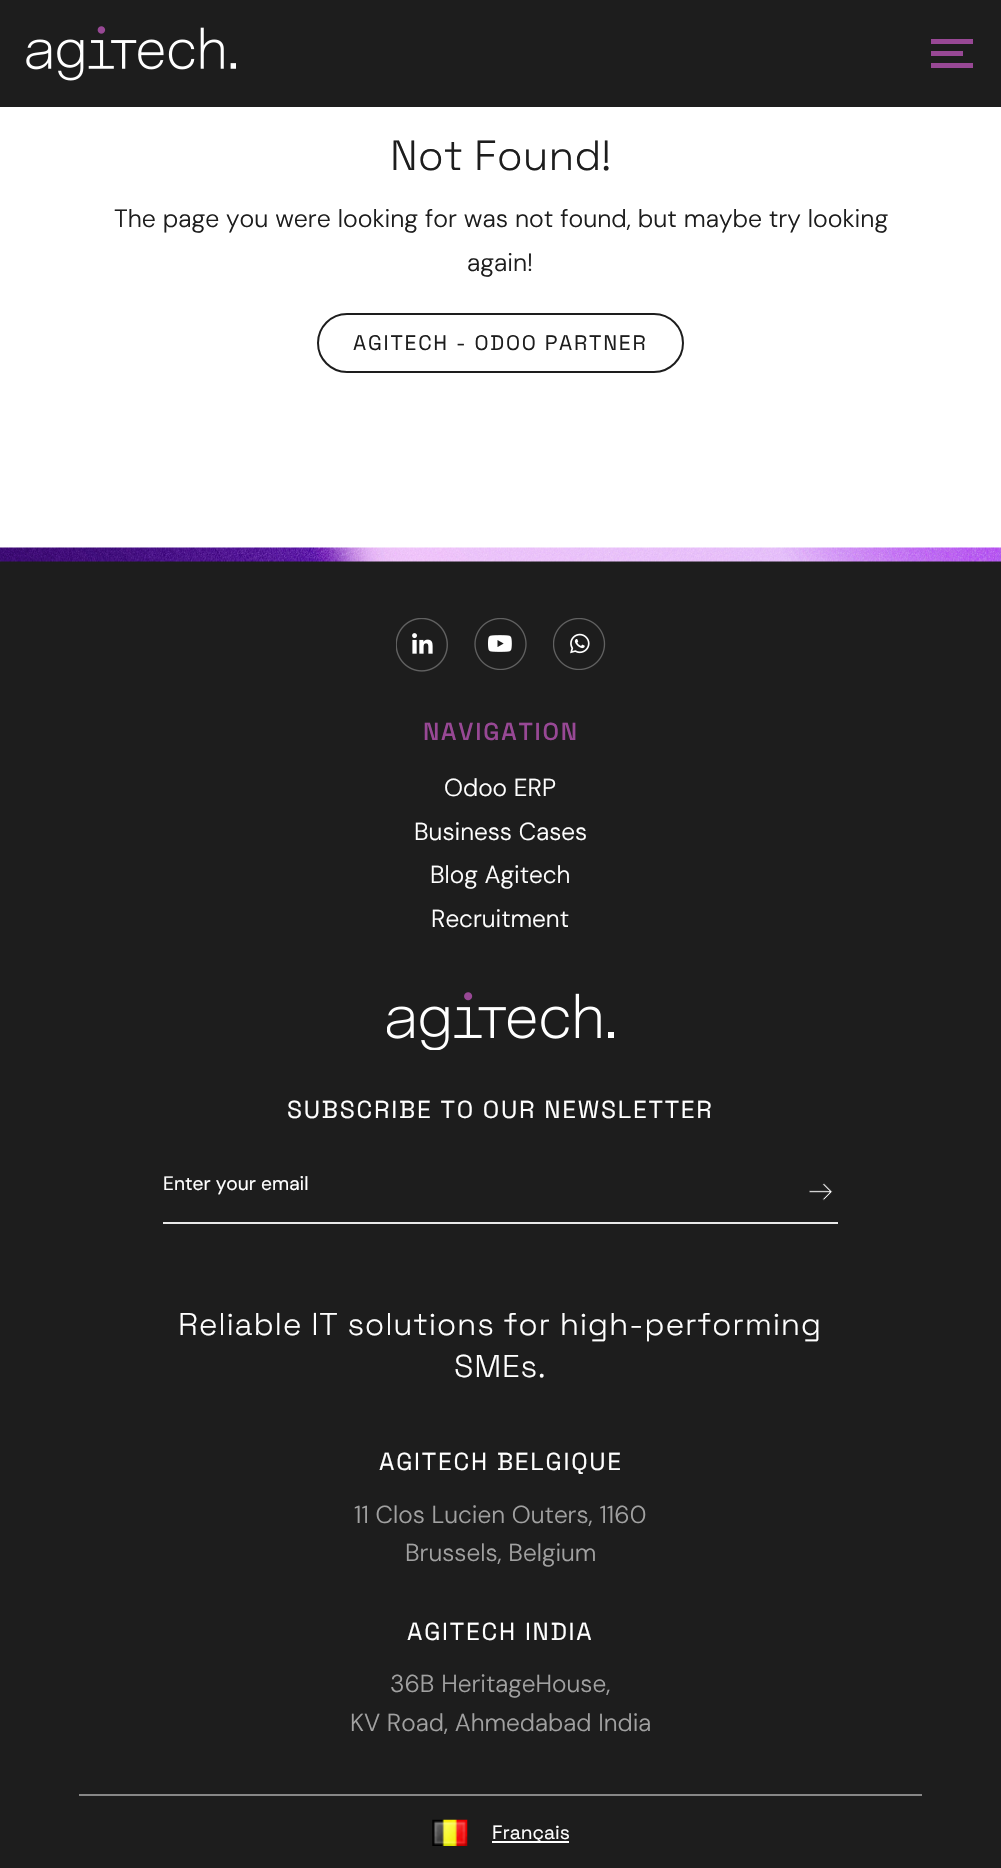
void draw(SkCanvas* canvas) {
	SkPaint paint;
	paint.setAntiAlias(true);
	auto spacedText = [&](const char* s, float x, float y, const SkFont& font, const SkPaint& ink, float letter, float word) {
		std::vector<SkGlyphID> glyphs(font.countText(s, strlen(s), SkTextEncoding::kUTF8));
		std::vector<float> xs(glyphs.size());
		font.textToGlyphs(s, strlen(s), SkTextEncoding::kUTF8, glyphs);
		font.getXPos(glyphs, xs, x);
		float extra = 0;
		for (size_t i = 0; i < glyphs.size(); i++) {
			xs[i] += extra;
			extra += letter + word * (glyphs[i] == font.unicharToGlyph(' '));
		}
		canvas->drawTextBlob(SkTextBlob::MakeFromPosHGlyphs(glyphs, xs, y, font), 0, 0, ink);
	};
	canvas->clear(0xffffffff);
	paint.setColor(0xff1d1d1d);
	canvas->drawRect(SkRect::MakeXYWH(0, 0, 1001, 107), paint);
	canvas->drawImageRect(SkImages::DeferredFromEncodedData(SkData::MakeFromFileName("img1.png")), SkRect::MakeXYWH(26, 26, 210, 55), SkSamplingOptions());
	paint.setColor(0xff984895);
	canvas->drawRect(SkRect::MakeXYWH(931, 51, 32, 5), paint);
	canvas->drawRect(SkRect::MakeXYWH(931, 39, 42, 5), paint);
	canvas->drawRect(SkRect::MakeXYWH(931, 63, 42, 5), paint);
	SkFont f1(fontMgr->matchFamilyStyle("Space Grotesk", SkFontStyle(300, SkFontStyle::kNormal_Width, SkFontStyle::kUpright_Slant)), 42);
	f1.setSubpixel(true);
	paint.setColor(0xff1d1d1d);
	canvas->drawString("Not Found!", 390, 170, f1, paint);
	SkFont f2(fontMgr->matchFamilyStyle("DM Sans", SkFontStyle(300, SkFontStyle::kNormal_Width, SkFontStyle::kUpright_Slant)), 24.95);
	f2.setSubpixel(true);
	canvas->drawString("The page you were looking for was not found, but maybe try looking", 114, 227, f2, paint);
	canvas->drawString("again!", 467, 271, f2, paint);
	paint.setStroke(true);
	paint.setStrokeWidth(2);
	canvas->drawRoundRect(SkRect::MakeXYWH(318, 314, 365, 58), 29, 29, paint);
	SkFont f3(fontMgr->matchFamilyStyle("Space Grotesk", SkFontStyle::Normal()), 21);
	f3.setSubpixel(true);
	paint.setStroke(false);
	spacedText("AGITECH - ODOO PARTNER", 353, 350, f3, paint, 1.75, 0);
	canvas->drawRect(SkRect::MakeXYWH(0, 561, 1001, 1307), paint);
	canvas->drawImageRect(SkImages::DeferredFromEncodedData(SkData::MakeFromFileName("img2.png")), SkRect::MakeXYWH(0, 547, 1001, 15), SkSamplingOptions());
	canvas->drawImageRect(SkImages::DeferredFromEncodedData(SkData::MakeFromFileName("img3.png")), SkRect::MakeXYWH(396, 618, 52, 54), SkSamplingOptions());
	canvas->drawImageRect(SkImages::DeferredFromEncodedData(SkData::MakeFromFileName("img4.png")), SkRect::MakeXYWH(474, 618, 53, 52), SkSamplingOptions());
	canvas->drawImageRect(SkImages::DeferredFromEncodedData(SkData::MakeFromFileName("img5.png")), SkRect::MakeXYWH(553, 618, 53, 52), SkSamplingOptions());
	SkFont f4(fontMgr->matchFamilyStyle("Space Grotesk", SkFontStyle(500, SkFontStyle::kNormal_Width, SkFontStyle::kUpright_Slant)), 24.5);
	f4.setSubpixel(true);
	paint.setColor(0xff984895);
	spacedText("NAVIGATION", 423, 740, f4, paint, 1.75, 0);
	SkFont f5(fontMgr->matchFamilyStyle("DM Sans", SkFontStyle(300, SkFontStyle::kNormal_Width, SkFontStyle::kUpright_Slant)), 24.5);
	f5.setSubpixel(true);
	paint.setColor(0xffffffff);
	canvas->drawString("Odoo ERP", 444, 796, f5, paint);
	canvas->drawString("Business Cases", 414, 840, f5, paint);
	canvas->drawString("Blog Agitech", 430, 883, f5, paint);
	canvas->drawString("Recruitment", 431, 927, f5, paint);
	canvas->drawImageRect(SkImages::DeferredFromEncodedData(SkData::MakeFromFileName("img6.png")), SkRect::MakeXYWH(387, 992, 227, 58), SkSamplingOptions());
	SkFont f6(fontMgr->matchFamilyStyle("Space Grotesk", SkFontStyle::Normal()), 24.5);
	f6.setSubpixel(true);
	spacedText("SUBSCRIBE TO OUR NEWSLETTER", 287, 1118, f6, paint, 1.75, 0);
	paint.setColor(0xffe9e9e9);
	canvas->drawRect(SkRect::MakeXYWH(163, 1222, 675, 2), paint);
	SkFont f7(fontMgr->matchFamilyStyle("DM Sans", SkFontStyle::Normal()), 19.25);
	f7.setSubpixel(true);
	paint.setColor(0xffffffff);
	canvas->drawString("Enter your email", 163, 1190, f7, paint);
	canvas->drawImageRect(SkImages::DeferredFromEncodedData(SkData::MakeFromFileName("img7.png")), SkRect::MakeXYWH(809, 1183, 24, 18), SkSamplingOptions());
	SkFont f8(fontMgr->matchFamilyStyle("Space Grotesk", SkFontStyle(300, SkFontStyle::kNormal_Width, SkFontStyle::kUpright_Slant)), 31.5);
	f8.setSubpixel(true);
	spacedText("Reliable IT solutions for high-performing", 178, 1335, f8, paint, 0.75, 0);
	spacedText("SMEs.", 454, 1377, f8, paint, 0.75, 0);
	spacedText("AGITECH BELGIQUE", 379, 1470, f6, paint, 1.75, 0);
	paint.setColor(0xffa1a1a1);
	canvas->drawString("11 Clos Lucien Outers, 1160", 354, 1523, f5, paint);
	canvas->drawString("Brussels, Belgium", 405, 1561, f5, paint);
	paint.setColor(0xffffffff);
	spacedText("AGITECH INDIA", 407, 1640, f6, paint, 1.75, 0);
	paint.setColor(0xffa1a1a1);
	canvas->drawString("36B HeritageHouse,", 390, 1692, f5, paint);
	canvas->drawString("KV Road, Ahmedabad India", 350, 1731, f5, paint);
	paint.setColor(0xff878787);
	canvas->drawRect(SkRect::MakeXYWH(79, 1794, 843, 2), paint);
	canvas->drawImageRect(SkImages::DeferredFromEncodedData(SkData::MakeFromFileName("img8.png")), SkRect::MakeXYWH(432, 1819, 36, 27), SkSamplingOptions());
	paint.setColor(0xffffffff);
	canvas->drawRect(SkRect::MakeXYWH(492, 1841, 77, 2), paint);
	SkFont f9(fontMgr->matchFamilyStyle("Space Grotesk", SkFontStyle::Normal()), 19.25);
	f9.setSubpixel(true);
	canvas->drawString("Français", 492, 1839, f9, paint);
}
